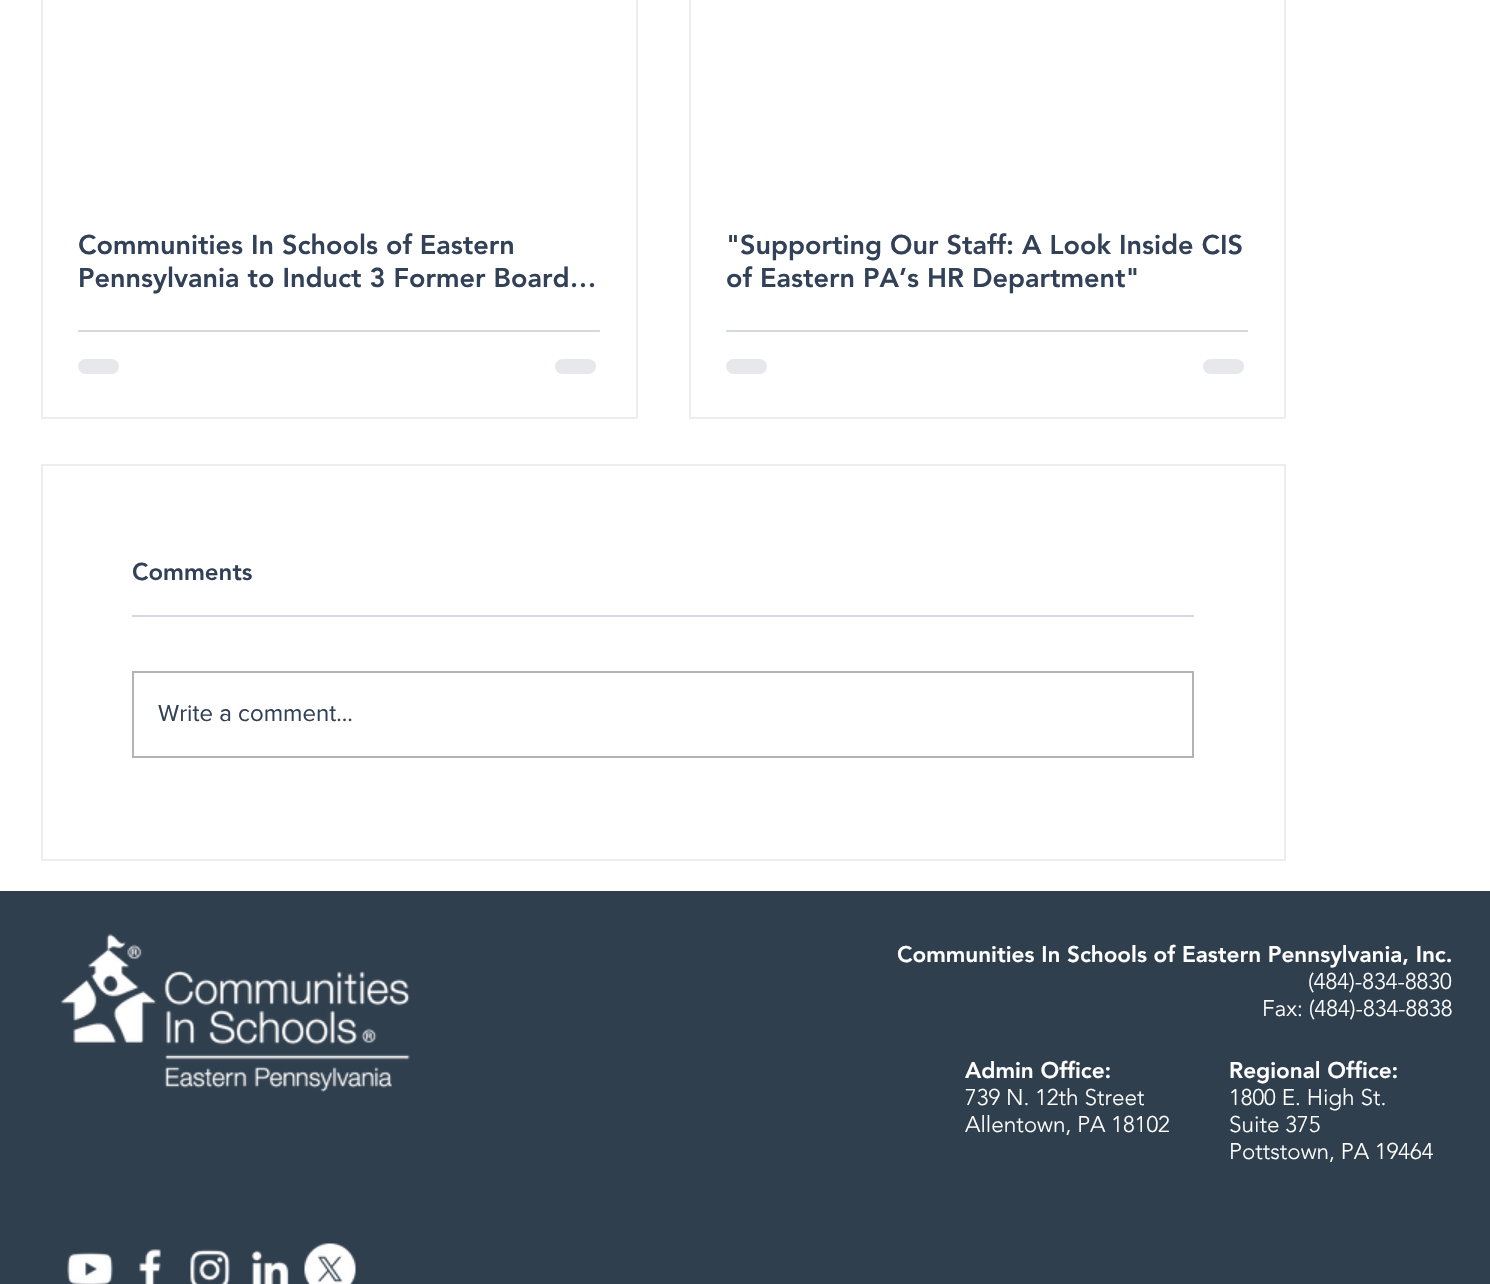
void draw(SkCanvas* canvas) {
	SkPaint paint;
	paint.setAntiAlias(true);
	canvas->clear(0xffffffff);
	paint.setStroke(true);
	paint.setStrokeWidth(2);
	paint.setColor(0xffeeecec);
	canvas->drawRect(SkRect::MakeXYWH(42, -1, 595, 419), paint);
	SkFont f1(fontMgr->matchFamilyStyle("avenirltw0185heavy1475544", SkFontStyle(900, SkFontStyle::kNormal_Width, SkFontStyle::kUpright_Slant)), 27);
	f1.setSubpixel(true);
	paint.setStroke(false);
	paint.setColor(0xff324158);
	canvas->drawString("Communities In Schools of Eastern", 78, 254, f1, paint);
	canvas->drawString("Pennsylvania to Induct 3 Former Board…", 78, 287, f1, paint);
	paint.setColor(0xffd6d9de);
	canvas->drawRect(SkRect::MakeXYWH(78, 330, 522, 2), paint);
	paint.setColor(0xffe6e8eb);
	canvas->drawRoundRect(SkRect::MakeXYWH(78, 359, 41, 15), 7.5, 7.5, paint);
	canvas->drawRoundRect(SkRect::MakeXYWH(555, 359, 41, 15), 7.5, 7.5, paint);
	paint.setStroke(true);
	paint.setColor(0xffeeecec);
	canvas->drawRect(SkRect::MakeXYWH(690, -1, 595, 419), paint);
	paint.setStroke(false);
	paint.setColor(0xff324158);
	canvas->drawString("\"Supporting Our Staff: A Look Inside CIS", 726, 254, f1, paint);
	canvas->drawString("of Eastern PA’s HR Department\"", 726, 287, f1, paint);
	paint.setColor(0xffd6d9de);
	canvas->drawRect(SkRect::MakeXYWH(726, 330, 522, 2), paint);
	paint.setColor(0xffe6e8eb);
	canvas->drawRoundRect(SkRect::MakeXYWH(726, 359, 41, 15), 7.5, 7.5, paint);
	canvas->drawRoundRect(SkRect::MakeXYWH(1203, 359, 41, 15), 7.5, 7.5, paint);
	paint.setStroke(true);
	paint.setColor(0xffeeecec);
	canvas->drawRect(SkRect::MakeXYWH(42, 465, 1243, 395), paint);
	SkFont f2(fontMgr->matchFamilyStyle("avenirltw0185heavy1475544", SkFontStyle(900, SkFontStyle::kNormal_Width, SkFontStyle::kUpright_Slant)), 24);
	f2.setSubpixel(true);
	paint.setStroke(false);
	paint.setColor(0xff324158);
	canvas->drawString("Comments", 132, 580, f2, paint);
	paint.setColor(0xffd6d9de);
	canvas->drawRect(SkRect::MakeXYWH(132, 615, 1062, 2), paint);
	paint.setStroke(true);
	paint.setColor(0xffb3b3b3);
	canvas->drawRect(SkRect::MakeXYWH(133, 672, 1060, 85), paint);
	SkFont f3(fontMgr->matchFamilyStyle("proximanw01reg", SkFontStyle::Normal()), 24);
	f3.setSubpixel(true);
	paint.setStroke(false);
	paint.setColor(0xff324158);
	canvas->drawString("Write a comment...", 158, 721, f3, paint);
	paint.setColor(0xff303f4d);
	canvas->drawRect(SkRect::MakeXYWH(0, 891, 1490, 393), paint);
	canvas->drawImageRect(SkImages::DeferredFromEncodedData(SkData::MakeFromFileName("img1.png")), SkRect::MakeXYWH(61, 934, 349, 159), SkSamplingOptions());
	SkFont f4(fontMgr->matchFamilyStyle("avenirltw0185heavy1475544", SkFontStyle(900, SkFontStyle::kNormal_Width, SkFontStyle::kUpright_Slant)), 22.5);
	f4.setSubpixel(true);
	paint.setColor(0xffffffff);
	canvas->drawString("Communities In Schools of Eastern Pennsylvania, Inc.", 897, 962, f4, paint);
	SkFont f5(fontMgr->matchFamilyStyle("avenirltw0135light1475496", SkFontStyle(300, SkFontStyle::kNormal_Width, SkFontStyle::kUpright_Slant)), 22.5);
	f5.setSubpixel(true);
	canvas->drawString("(484)-834-8830", 1308, 989, f5, paint);
	canvas->drawString("Fax: (484)-834-8838", 1262, 1016, f5, paint);
	canvas->drawString("Admin Office:", 965, 1078, f4, paint);
	canvas->drawString("739 N. 12th Street", 965, 1105, f5, paint);
	canvas->drawString("Allentown, PA 18102", 965, 1132, f5, paint);
	canvas->drawString("Regional Office:", 1229, 1078, f4, paint);
	canvas->drawString("1800 E. High St.", 1229, 1105, f5, paint);
	canvas->drawString("Suite 375", 1229, 1132, f5, paint);
	canvas->drawString("Pottstown, PA 19464", 1229, 1159, f5, paint);
	canvas->drawImageRect(SkImages::DeferredFromEncodedData(SkData::MakeFromFileName("img2.png")), SkRect::MakeXYWH(67, 1252, 46, 32), SkSamplingOptions());
	canvas->drawImageRect(SkImages::DeferredFromEncodedData(SkData::MakeFromFileName("img3.png")), SkRect::MakeXYWH(139, 1249, 22, 35), SkSamplingOptions());
	canvas->drawImageRect(SkImages::DeferredFromEncodedData(SkData::MakeFromFileName("img4.png")), SkRect::MakeXYWH(190, 1249, 40, 35), SkSamplingOptions());
	canvas->drawImageRect(SkImages::DeferredFromEncodedData(SkData::MakeFromFileName("img5.png")), SkRect::MakeXYWH(251, 1250, 38, 34), SkSamplingOptions());
	canvas->drawImageRect(SkImages::DeferredFromEncodedData(SkData::MakeFromFileName("img6.png")), SkRect::MakeXYWH(304, 1243, 52, 41), SkSamplingOptions());
}
